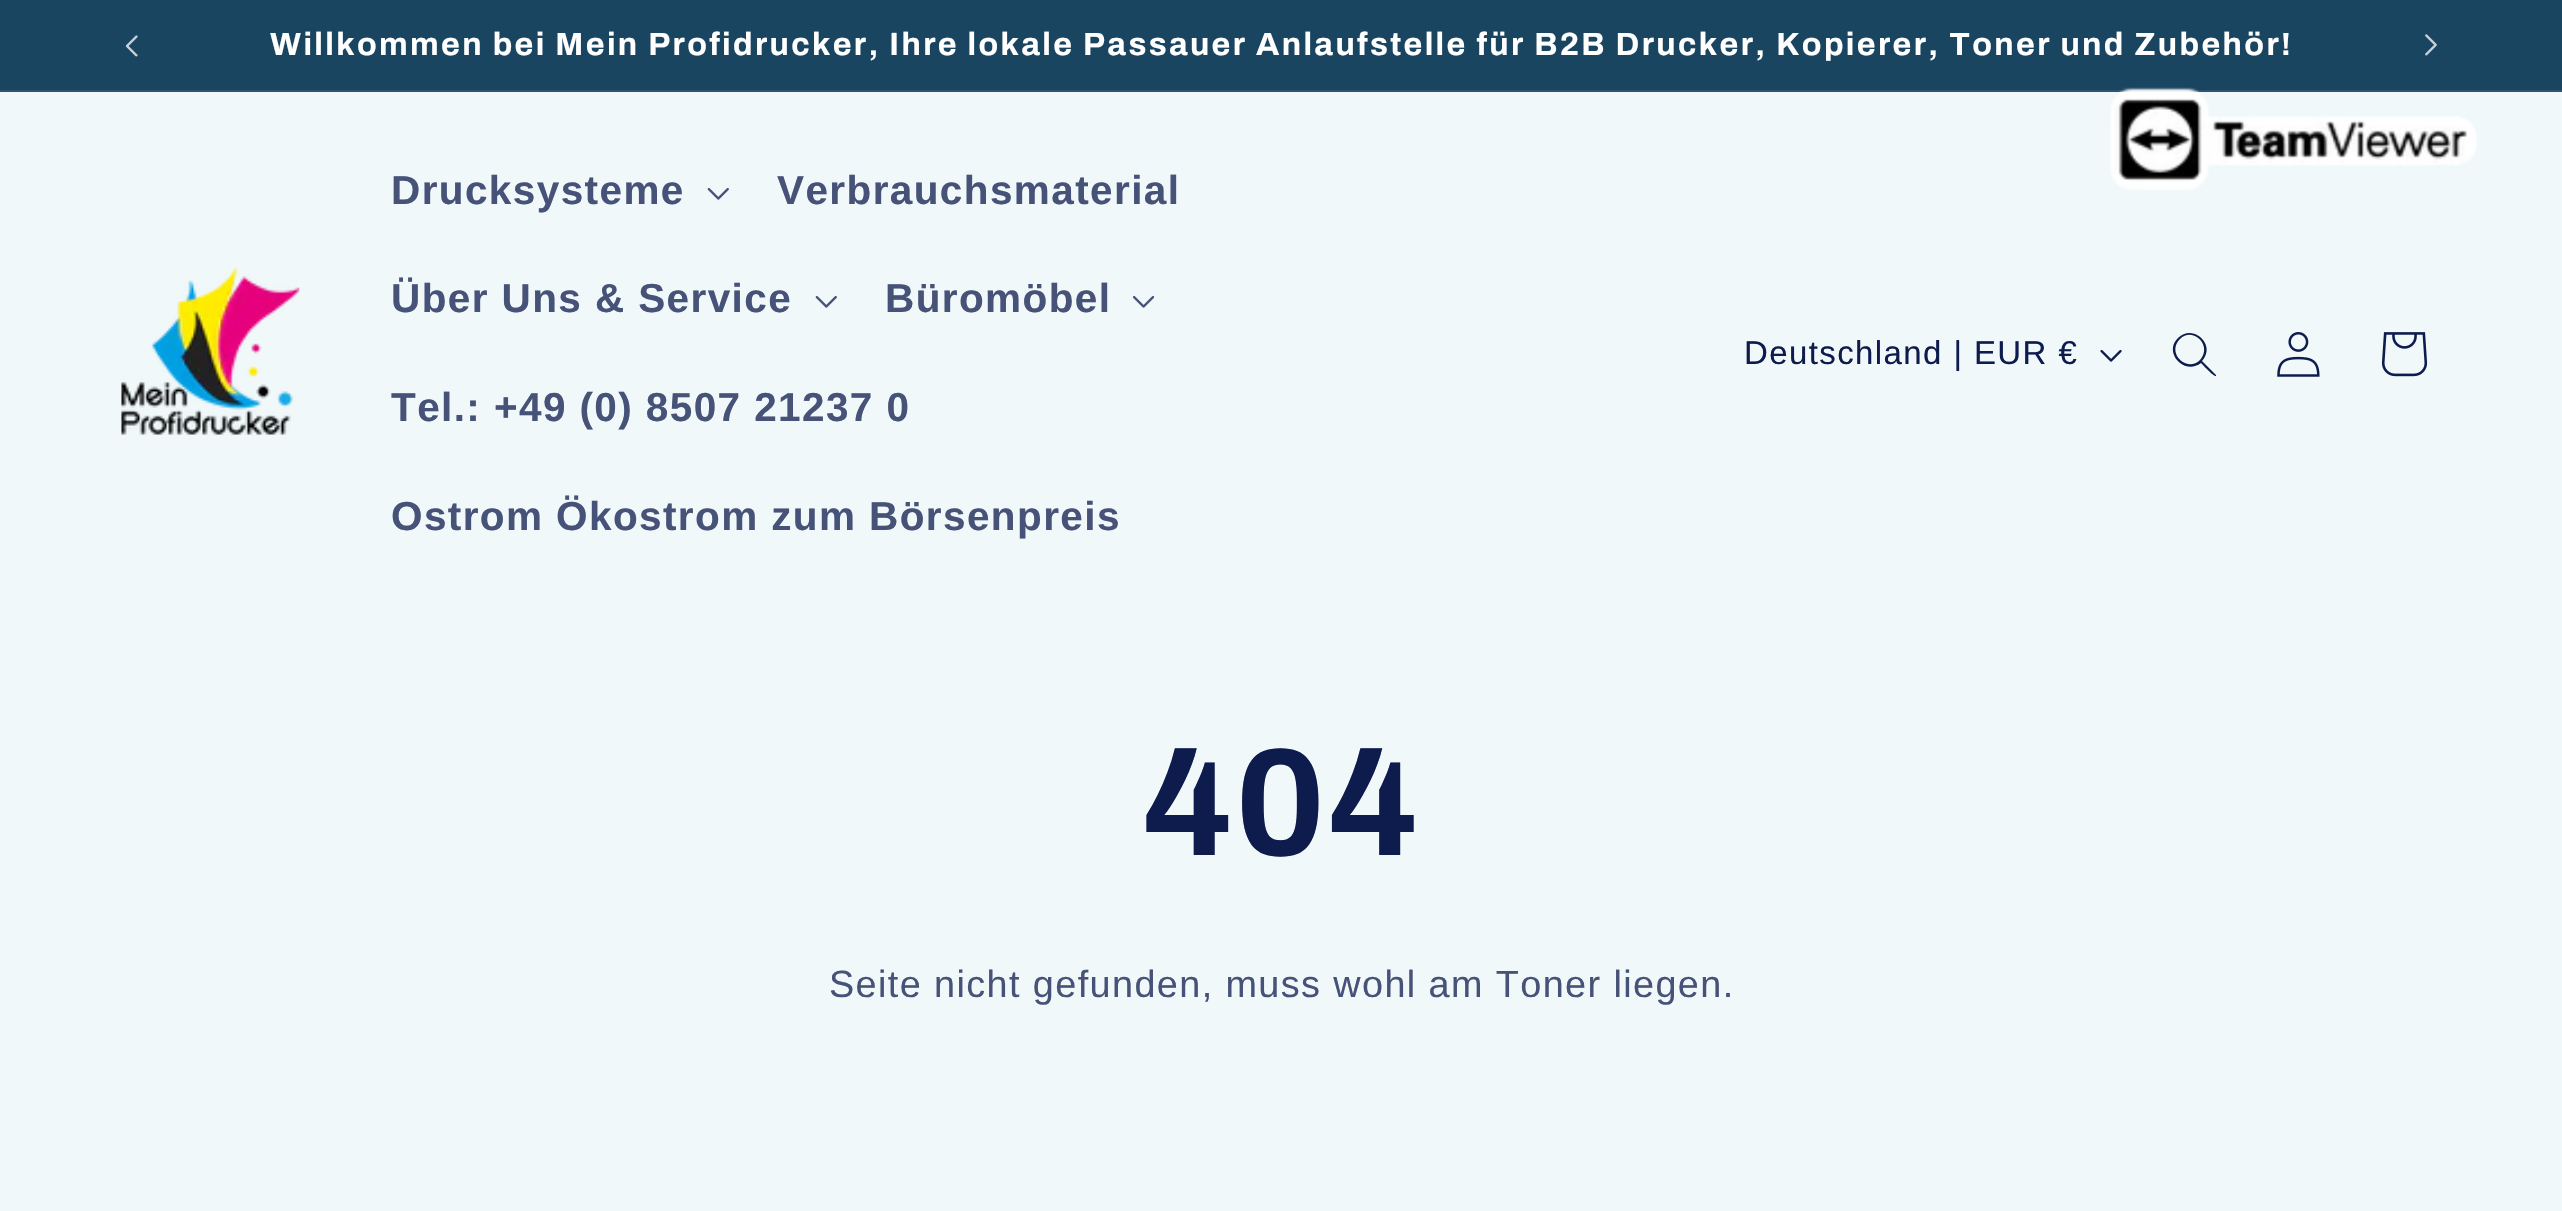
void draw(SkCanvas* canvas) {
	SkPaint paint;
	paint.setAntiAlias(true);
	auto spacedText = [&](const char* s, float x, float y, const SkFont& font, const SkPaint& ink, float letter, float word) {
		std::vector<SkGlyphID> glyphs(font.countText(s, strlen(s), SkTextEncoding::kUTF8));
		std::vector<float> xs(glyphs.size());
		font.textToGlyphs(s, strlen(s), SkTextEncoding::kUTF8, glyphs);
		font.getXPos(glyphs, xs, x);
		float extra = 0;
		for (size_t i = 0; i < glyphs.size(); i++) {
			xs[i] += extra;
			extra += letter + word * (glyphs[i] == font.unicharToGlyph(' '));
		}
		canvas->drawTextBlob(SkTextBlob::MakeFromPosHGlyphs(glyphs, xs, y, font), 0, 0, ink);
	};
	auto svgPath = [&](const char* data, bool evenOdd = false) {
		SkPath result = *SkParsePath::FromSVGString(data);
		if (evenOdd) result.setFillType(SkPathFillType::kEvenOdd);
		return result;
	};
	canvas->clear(0xfff0f8fa);
	paint.setColor(0xff1a4561);
	canvas->drawRect(SkRect::MakeXYWH(0, 0, 2562, 90), paint);
	paint.setColor(0xff2c546e);
	canvas->drawRect(SkRect::MakeXYWH(0, 90, 2562, 2), paint);
	canvas->drawImageRect(SkImages::DeferredFromEncodedData(SkData::MakeFromFileName("img1.png")), SkRect::MakeXYWH(125, 35, 13, 22), SkSamplingOptions());
	SkFont f1(fontMgr->matchFamilyStyle("Archivo", SkFontStyle::Bold()), 32.18);
	f1.setSubpixel(true);
	paint.setColor(0xffffffff);
	spacedText("Willkommen bei Mein Profidrucker, Ihre lokale Passauer Anlaufstelle für B2B Drucker, Kopierer, Toner und Zubehör!", 270, 55, f1, paint, 2.36, 0);
	canvas->drawImageRect(SkImages::DeferredFromEncodedData(SkData::MakeFromFileName("img2.png")), SkRect::MakeXYWH(2425, 34, 12, 22), SkSamplingOptions());
	canvas->drawImageRect(SkImages::DeferredFromEncodedData(SkData::MakeFromFileName("img3.png")), SkRect::MakeXYWH(2110, 87, 367, 104), SkSamplingOptions());
	canvas->drawImageRect(SkImages::DeferredFromEncodedData(SkData::MakeFromFileName("img4.png")), SkRect::MakeXYWH(121, 267, 179, 168), SkSamplingOptions());
	SkFont f2(fontMgr->matchFamilyStyle("Liberation Sans", SkFontStyle::Bold()), 40.5);
	f2.setSubpixel(true);
	paint.setColor(0xff475278);
	spacedText("Drucksysteme", 391, 204, f2, paint, 1.4, 0);
	canvas->drawImageRect(SkImages::DeferredFromEncodedData(SkData::MakeFromFileName("img5.png")), SkRect::MakeXYWH(707, 188, 22, 12), SkSamplingOptions());
	spacedText("Verbrauchsmaterial", 777, 204, f2, paint, 1.4, 0);
	spacedText("Über Uns & Service", 391, 312, f2, paint, 1.4, 0);
	canvas->drawImageRect(SkImages::DeferredFromEncodedData(SkData::MakeFromFileName("img5.png")), SkRect::MakeXYWH(815, 296, 22, 12), SkSamplingOptions());
	spacedText("Büromöbel", 885, 312, f2, paint, 1.4, 0);
	canvas->drawImageRect(SkImages::DeferredFromEncodedData(SkData::MakeFromFileName("img6.png")), SkRect::MakeXYWH(1133, 296, 22, 12), SkSamplingOptions());
	spacedText("Tel.: +49 (0) 8507 21237 0", 391, 421, f2, paint, 1.4, 0);
	spacedText("Ostrom Ökostrom zum Börsenpreis", 391, 530, f2, paint, 1.4, 0);
	SkFont f3(fontMgr->matchFamilyStyle("Liberation Sans", SkFontStyle::Normal()), 33);
	f3.setSubpixel(true);
	paint.setColor(0xff0e1b4d);
	spacedText("Deutschland | EUR €", 1744, 364, f3, paint, 1.4, 0);
	canvas->drawImageRect(SkImages::DeferredFromEncodedData(SkData::MakeFromFileName("img7.png")), SkRect::MakeXYWH(2100, 349, 22, 13), SkSamplingOptions());
	canvas->drawPath(svgPath("M2200 360C2187 373 2166 353 2180 339C2193 326 2213 346 2200 360ZM2201 363C2184 376 2163 352 2178 338C2193 323 2217 345 2202 361L2216 375V376C2214 377 2203 365 2201 363Z", true), paint);
	canvas->drawImageRect(SkImages::DeferredFromEncodedData(SkData::MakeFromFileName("img8.png")), SkRect::MakeXYWH(2277, 332, 43, 45), SkSamplingOptions());
	canvas->drawImageRect(SkImages::DeferredFromEncodedData(SkData::MakeFromFileName("img9.png")), SkRect::MakeXYWH(2381, 332, 47, 45), SkSamplingOptions());
	SkFont f4(fontMgr->matchFamilyStyle("Archivo", SkFontStyle::Bold()), 153);
	f4.setSubpixel(true);
	spacedText("404", 1142, 855, f4, paint, 1.5, 0);
	SkFont f5(fontMgr->matchFamilyStyle("Liberation Sans", SkFontStyle::Normal()), 37.8);
	f5.setSubpixel(true);
	paint.setColor(0xff475278);
	spacedText("Seite nicht gefunden, muss wohl am Toner liegen.", 829, 997, f5, paint, 1.4, 0);
}
